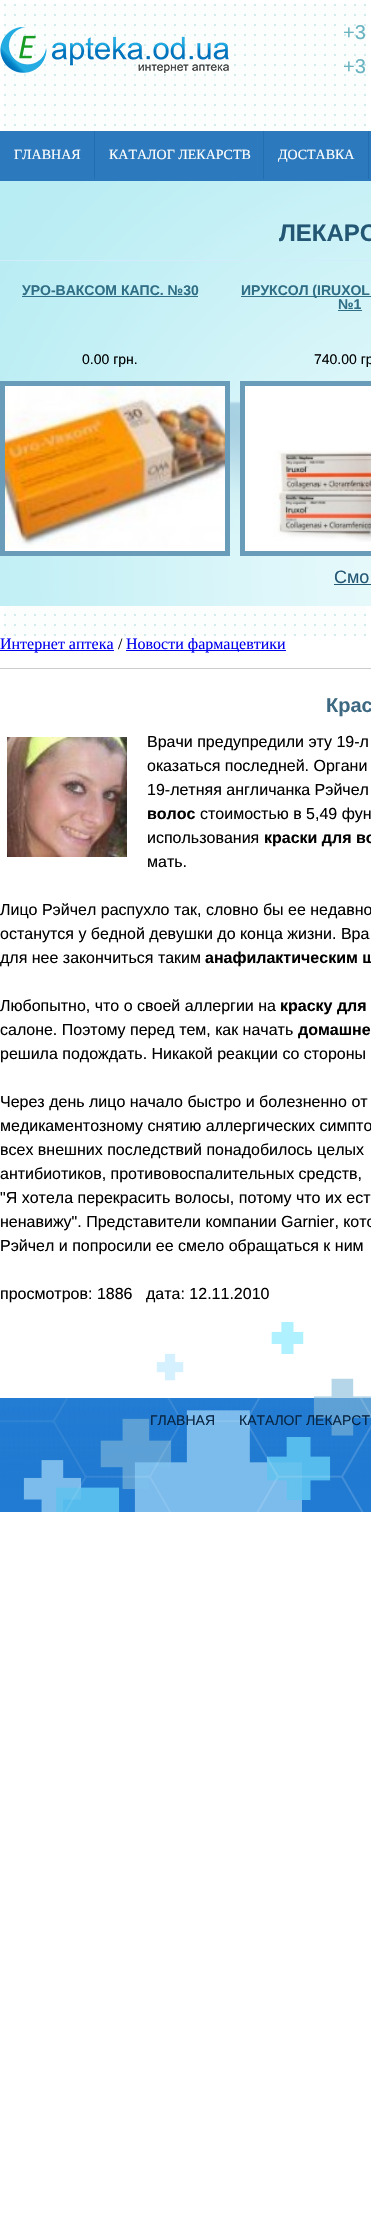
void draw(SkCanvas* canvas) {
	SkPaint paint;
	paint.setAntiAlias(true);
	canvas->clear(0xffffffff);
	canvas->drawImageRect(SkImages::DeferredFromEncodedData(SkData::MakeFromFileName("img1.png")), SkRect::MakeXYWH(4, 4, 362, 632), SkSamplingOptions());
	canvas->drawImageRect(SkImages::DeferredFromEncodedData(SkData::MakeFromFileName("img2.png")), SkRect::MakeXYWH(0, 27, 229, 46), SkSamplingOptions());
	SkFont f1(fontMgr->matchFamilyStyle("Liberation Sans", SkFontStyle::Normal()), 20);
	f1.setSubpixel(true);
	paint.setColor(0xff6ab4c1);
	canvas->drawString("+3", 343, 39, f1, paint);
	canvas->drawString("+3", 343, 73, f1, paint);
	paint.setColor(0xff2c7abd);
	canvas->drawRect(SkRect::MakeXYWH(0, 131, 371, 50), paint);
	paint.setColor(0xff216fb0);
	canvas->drawRect(SkRect::MakeXYWH(94, 131, 1, 48), paint);
	SkFont f2(fontMgr->matchFamilyStyle("Liberation Serif", SkFontStyle::Normal()), 14);
	f2.setSubpixel(true);
	paint.setColor(0xffffffff);
	canvas->drawString("ГЛАВНАЯ", 14, 159, f2, paint);
	paint.setColor(0xff216fb0);
	canvas->drawRect(SkRect::MakeXYWH(263, 131, 1, 48), paint);
	paint.setColor(0xffffffff);
	canvas->drawString("КАТАЛОГ ЛЕКАРСТВ", 109, 159, f2, paint);
	paint.setColor(0xff216fb0);
	canvas->drawRect(SkRect::MakeXYWH(368, 131, 1, 48), paint);
	paint.setColor(0xffffffff);
	canvas->drawString("ДОСТАВКА", 278, 159, f2, paint);
	paint.setColor(0xffafebf2);
	canvas->drawRect(SkRect::MakeXYWH(0, 181, 371, 425), paint);
	canvas->drawImageRect(SkImages::DeferredFromEncodedData(SkData::MakeFromFileName("img3.png")), SkRect::MakeXYWH(0, 181, 371, 425), SkSamplingOptions());
	paint.setColor(0xffd1ecfc);
	canvas->drawRect(SkRect::MakeXYWH(0, 260, 371, 1), paint);
	SkFont f3(fontMgr->matchFamilyStyle("Liberation Sans", SkFontStyle::Bold()), 24);
	f3.setSubpixel(true);
	paint.setColor(0xff245774);
	canvas->drawString("ЛЕКАРС", 279, 241, f3, paint);
	SkFont f4(fontMgr->matchFamilyStyle("Liberation Sans", SkFontStyle::Bold()), 14);
	f4.setSubpixel(true);
	paint.setColor(0xff2f6e85);
	canvas->drawString("УРО-ВАКСОМ КАПС. №30", 22, 295, f4, paint);
	canvas->drawRect(SkRect::MakeXYWH(22, 296, 176, 1), paint);
	SkFont f5(fontMgr->matchFamilyStyle("Liberation Sans", SkFontStyle::Normal()), 14);
	f5.setSubpixel(true);
	paint.setColor(0xff000000);
	canvas->drawString("0.00 грн.", 82, 364, f5, paint);
	paint.setColor(0xffffffff);
	canvas->drawRect(SkRect::MakeXYWH(5, 548, 220, 3), paint);
	paint.setStroke(true);
	paint.setStrokeWidth(5);
	paint.setColor(0xff699cb9);
	canvas->drawRect(SkRect::MakeXYWH(2.5, 383.5, 225, 170), paint);
	canvas->drawImageRect(SkImages::DeferredFromEncodedData(SkData::MakeFromFileName("img4.png")), SkRect::MakeXYWH(5, 386, 220, 162), SkSamplingOptions());
	paint.setStroke(false);
	paint.setColor(0xff2f6e85);
	canvas->drawRect(SkRect::MakeXYWH(241, 296, 130, 1), paint);
	canvas->drawString("ИРУКСОЛ (IRUXOL", 241, 295, f4, paint);
	canvas->drawString("№1", 338, 309, f4, paint);
	canvas->drawRect(SkRect::MakeXYWH(338, 310, 24, 1), paint);
	paint.setColor(0xff000000);
	canvas->drawString("740.00 гр", 314, 364, f5, paint);
	paint.setColor(0xffffffff);
	canvas->drawRect(SkRect::MakeXYWH(242.5, 383.5, 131, 170), paint);
	paint.setStroke(true);
	paint.setColor(0xff699cb9);
	canvas->drawRect(SkRect::MakeXYWH(242.5, 383.5, 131, 170), paint);
	canvas->drawImageRect(SkImages::DeferredFromEncodedData(SkData::MakeFromFileName("img5.png")), SkRect::MakeXYWH(273, 450, 98, 92), SkSamplingOptions());
	SkFont f6(fontMgr->matchFamilyStyle("Liberation Sans", SkFontStyle::Normal()), 18);
	f6.setSubpixel(true);
	paint.setStroke(false);
	paint.setColor(0xff245774);
	canvas->drawString("Смо", 334, 583, f6, paint);
	canvas->drawRect(SkRect::MakeXYWH(334, 584, 37, 1), paint);
	paint.setColor(0xff0000ee);
	canvas->drawRect(SkRect::MakeXYWH(0, 650, 114, 1), paint);
	SkFont f7(fontMgr->matchFamilyStyle("Liberation Serif", SkFontStyle::Normal()), 16);
	f7.setSubpixel(true);
	canvas->drawString("Интернет аптека", 0, 649, f7, paint);
	paint.setColor(0xff000000);
	canvas->drawString("/", 118, 649, f7, paint);
	paint.setColor(0xff0000ee);
	canvas->drawRect(SkRect::MakeXYWH(126, 650, 160, 1), paint);
	canvas->drawString("Новости фармацевтики", 126, 649, f7, paint);
	paint.setColor(0xffcccccc);
	canvas->drawRect(SkRect::MakeXYWH(0, 668, 371, 1), paint);
	SkFont f8(fontMgr->matchFamilyStyle("Liberation Sans", SkFontStyle::Bold()), 20);
	f8.setSubpixel(true);
	paint.setColor(0xff3c6881);
	canvas->drawString("Крас", 326, 712, f8, paint);
	canvas->drawImageRect(SkImages::DeferredFromEncodedData(SkData::MakeFromFileName("img6.png")), SkRect::MakeXYWH(7, 737, 120, 120), SkSamplingOptions());
	SkFont f9(fontMgr->matchFamilyStyle("Liberation Sans", SkFontStyle::Normal()), 16);
	f9.setSubpixel(true);
	paint.setColor(0xff000000);
	canvas->drawString("Врачи предупредили эту 19-л", 147, 747, f9, paint);
	canvas->drawString("оказаться последней. Органи", 147, 771, f9, paint);
	canvas->drawString("19-летняя англичанка Рэйчел", 147, 795, f9, paint);
	SkFont f10(fontMgr->matchFamilyStyle("Liberation Sans", SkFontStyle::Bold()), 16);
	f10.setSubpixel(true);
	canvas->drawString("волос", 147, 819, f10, paint);
	canvas->drawString("стоимостью в 5,49 фун", 200, 819, f9, paint);
	canvas->drawString("использования", 147, 843, f9, paint);
	canvas->drawString("краски для во", 264, 843, f10, paint);
	canvas->drawString("мать.", 147, 867, f9, paint);
	canvas->drawString("Лицо Рэйчел распухло так, словно бы ее недавно", 0, 915, f9, paint);
	canvas->drawString("останутся у бедной девушки до конца жизни. Вра", 0, 939, f9, paint);
	canvas->drawString("для нее закончиться таким", 0, 963, f9, paint);
	canvas->drawString("анафилактическим ш", 205, 963, f10, paint);
	canvas->drawString("Любопытно, что о своей аллергии на", 0, 1011, f9, paint);
	canvas->drawString("краску для", 280, 1011, f10, paint);
	canvas->drawString("салоне. Поэтому перед тем, как начать", 0, 1035, f9, paint);
	canvas->drawString("домашне", 298, 1035, f10, paint);
	canvas->drawString("решила подождать. Никакой реакции со стороны", 0, 1059, f9, paint);
	canvas->drawString("Через день лицо начало быстро и болезненно от", 0, 1107, f9, paint);
	canvas->drawString("медикаментозному снятию аллергических симпто", 0, 1131, f9, paint);
	canvas->drawString("всех внешних последствий понадобилось целых", 0, 1155, f9, paint);
	canvas->drawString("антибиотиков, противовоспалительных средств,", 0, 1179, f9, paint);
	canvas->drawString("\"Я хотела перекрасить волосы, потому что их ест", 0, 1203, f9, paint);
	canvas->drawString("ненавижу\". Представители компании Garnier, кото", 0, 1227, f9, paint);
	canvas->drawString("Рэйчел и попросили ее смело обращаться к ним", 0, 1251, f9, paint);
	canvas->drawString("просмотров: 1886", 0, 1299, f9, paint);
	canvas->drawString("дата: 12.11.2010", 146, 1299, f9, paint);
	canvas->drawImageRect(SkImages::DeferredFromEncodedData(SkData::MakeFromFileName("img7.png")), SkRect::MakeXYWH(0, 1322, 371, 190), SkSamplingOptions());
	paint.setColor(0xff082543);
	canvas->drawString("ГЛАВНАЯ", 150, 1425, f5, paint);
	canvas->drawString("КАТАЛОГ ЛЕКАРСТ", 239, 1425, f5, paint);
}
